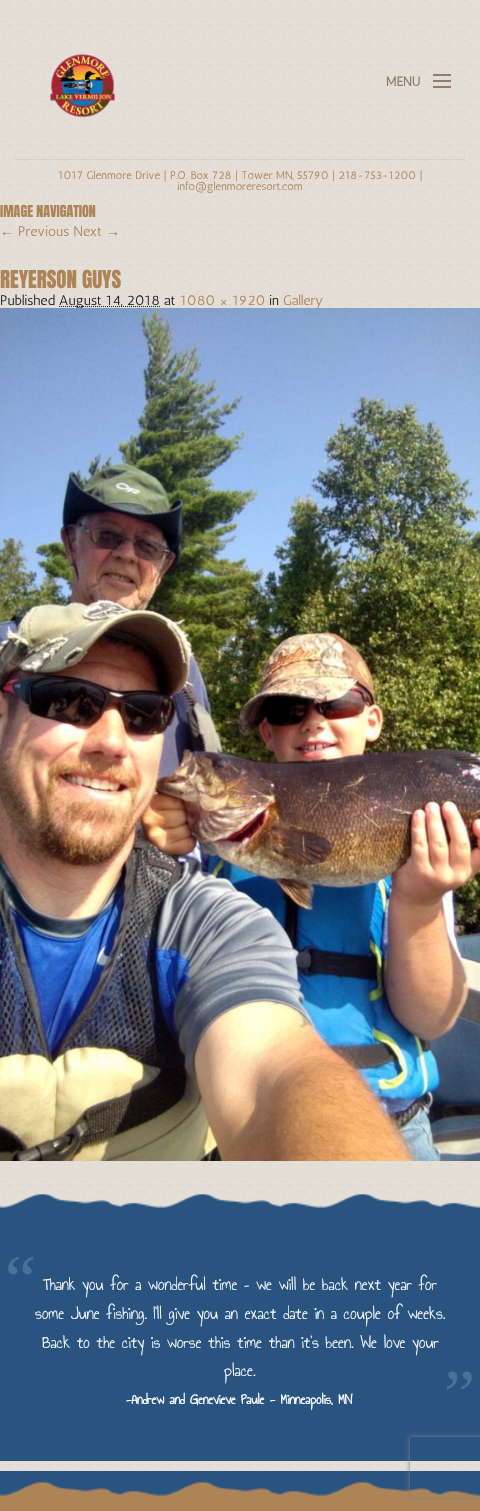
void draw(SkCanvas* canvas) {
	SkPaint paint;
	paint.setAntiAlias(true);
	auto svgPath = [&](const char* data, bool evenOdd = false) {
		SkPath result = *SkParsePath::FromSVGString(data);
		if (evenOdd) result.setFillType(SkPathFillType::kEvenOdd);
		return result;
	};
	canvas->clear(0xffffffff);
	canvas->drawImageRect(SkImages::DeferredFromEncodedData(SkData::MakeFromFileName("img1.png")), SkRect::MakeXYWH(0, 0, 480, 1471), SkSamplingOptions());
	paint.setColor(0xffd5d0c8);
	canvas->drawRect(SkRect::MakeXYWH(15, 159, 450, 1), paint);
	canvas->drawImageRect(SkImages::DeferredFromEncodedData(SkData::MakeFromFileName("img2.png")), SkRect::MakeXYWH(50, 54, 66, 64), SkSamplingOptions());
	paint.setColor(0xff8e7e6b);
	canvas->drawRect(SkRect::MakeXYWH(433, 86, 18, 2), paint);
	canvas->drawRect(SkRect::MakeXYWH(433, 80, 18, 2), paint);
	canvas->drawRect(SkRect::MakeXYWH(433, 74, 18, 2), paint);
	SkFont f1(fontMgr->matchFamilyStyle("Antic", SkFontStyle::Bold()), 13);
	f1.setSubpixel(true);
	canvas->drawString("MENU", 386, 86, f1, paint);
	SkFont f2(fontMgr->matchFamilyStyle("Antic", SkFontStyle::Normal()), 11.2);
	f2.setSubpixel(true);
	paint.setColor(0xffad8458);
	canvas->drawString("1017 Glenmore Drive | P.O. Box 728 | Tower MN, 55790 | 218-753-1200 |", 58, 179, f2, paint);
	canvas->drawString("info@glenmoreresort.com", 177, 190, f2, paint);
	SkFont f3(fontMgr->matchFamilyStyle("Anton", SkFontStyle::Normal()), 14);
	f3.setSubpixel(true);
	canvas->drawString("IMAGE NAVIGATION", 0, 217, f3, paint);
	SkFont f4(fontMgr->matchFamilyStyle("Liberation Sans", SkFontStyle::Normal()), 14);
	f4.setSubpixel(true);
	canvas->drawString("←", 0, 236, f4, paint);
	SkFont f5(fontMgr->matchFamilyStyle("Antic", SkFontStyle::Normal()), 14);
	f5.setSubpixel(true);
	canvas->drawString("Previous Next", 18, 236, f5, paint);
	canvas->drawString("→", 106, 236, f4, paint);
	SkFont f6(fontMgr->matchFamilyStyle("Anton", SkFontStyle::Normal()), 21);
	f6.setSubpixel(true);
	canvas->drawString("REYERSON GUYS", 0, 288, f6, paint);
	paint.setColor(0xff222222);
	canvas->drawString("Published", 0, 305, f5, paint);
	paint.setStroke(true);
	paint.setStrokeWidth(1);
	paint.setPathEffect(SkDashPathEffect::Make({{1, 1}}, 0));
	canvas->drawPath(svgPath("M59 306.5H160"), paint);
	paint.setPathEffect(nullptr);
	paint.setStroke(false);
	canvas->drawString("August 14, 2018 at", 59, 305, f5, paint);
	paint.setColor(0xffad8458);
	canvas->drawString("1080 × 1920", 180, 305, f5, paint);
	paint.setColor(0xff222222);
	canvas->drawString("in", 269, 305, f5, paint);
	paint.setColor(0xffad8458);
	canvas->drawString("Gallery", 283, 305, f5, paint);
	canvas->drawImageRect(SkImages::DeferredFromEncodedData(SkData::MakeFromFileName("img3.png")), SkRect::MakeXYWH(0, 308, 480, 853), SkSamplingOptions());
	paint.setColor(0xff2a5480);
	canvas->drawRect(SkRect::MakeXYWH(0, 1211, 480, 250), paint);
	canvas->drawImageRect(SkImages::DeferredFromEncodedData(SkData::MakeFromFileName("img4.png")), SkRect::MakeXYWH(0, 1194, 480, 17), SkSamplingOptions());
	SkFont f7(fontMgr->matchFamilyStyle("Liberation Serif", SkFontStyle::Normal()), 70);
	f7.setSubpixel(true);
	paint.setColor(0xff48719b);
	canvas->drawString("“", 5, 1303, f7, paint);
	SkFont f8(fontMgr->matchFamilyStyle("Annie Use Your Telescope", SkFontStyle::Normal()), 17.9);
	f8.setSubpixel(true);
	paint.setColor(0xffffffff);
	canvas->drawString("Thank you for a wonderful time – we will be back next year for", 43, 1290, f8, paint);
	canvas->drawString("some June fishing. I’ll give you an exact date in a couple of weeks.", 35, 1319, f8, paint);
	canvas->drawString("Back to the city is worse this time than it’s been. We love your", 42, 1348, f8, paint);
	canvas->drawString("place.", 224, 1376, f8, paint);
	paint.setColor(0xff48719b);
	canvas->drawString("”", 444, 1418, f7, paint);
	SkFont f9(fontMgr->matchFamilyStyle("Annie Use Your Telescope", SkFontStyle::Bold()), 14.3);
	f9.setSubpixel(true);
	paint.setColor(0xffffffff);
	canvas->drawString("-Andrew and Genevieve Paule - Minneapolis, MN", 126, 1404, f9, paint);
	paint.setColor(0xffad8458);
	canvas->drawRect(SkRect::MakeXYWH(0, 1496, 480, 15), paint);
	canvas->drawImageRect(SkImages::DeferredFromEncodedData(SkData::MakeFromFileName("img5.png")), SkRect::MakeXYWH(0, 1471, 480, 25), SkSamplingOptions());
	canvas->save();
	canvas->clipPath(svgPath("M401 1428H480V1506H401ZM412 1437H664C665 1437 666 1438 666 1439V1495C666 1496 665 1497 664 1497H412C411 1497 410 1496 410 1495V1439C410 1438 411 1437 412 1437Z", true), true);
	paint.setColor(0xff808080);
	paint.setMaskFilter(SkMaskFilter::MakeBlur(kNormal_SkBlurStyle, 2.5));
	canvas->drawRoundRect(SkRect::MakeXYWH(410, 1437, 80, 60), 2, 2, paint);
	paint.setMaskFilter(nullptr);
	canvas->restore();
}
